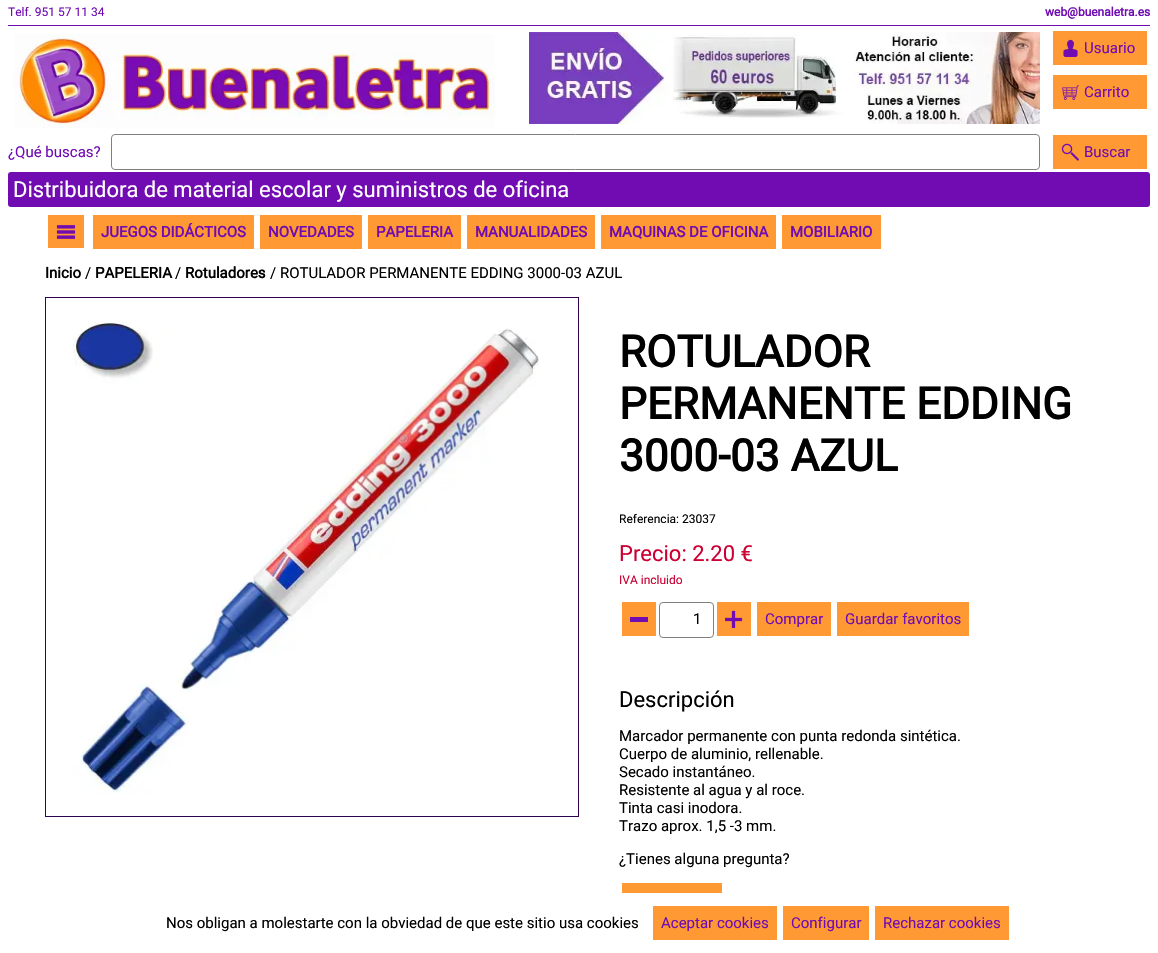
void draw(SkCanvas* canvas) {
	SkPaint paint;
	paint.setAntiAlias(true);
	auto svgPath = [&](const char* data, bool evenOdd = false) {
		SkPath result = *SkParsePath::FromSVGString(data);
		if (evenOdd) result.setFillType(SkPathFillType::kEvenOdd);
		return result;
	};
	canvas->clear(0xffffffff);
	SkFont f1(fontMgr->matchFamilyStyle("Roboto", SkFontStyle::Normal()), 12);
	f1.setSubpixel(true);
	paint.setColor(0xff710cb2);
	canvas->drawString("Telf. 951 57 11 34", 8, 16, f1, paint);
	SkFont f2(fontMgr->matchFamilyStyle("Roboto", SkFontStyle::Bold()), 12);
	f2.setSubpixel(true);
	canvas->drawString("web@buenaletra.es", 1045, 16, f2, paint);
	canvas->drawRect(SkRect::MakeXYWH(8, 25, 1142, 1), paint);
	canvas->drawImageRect(SkImages::DeferredFromEncodedData(SkData::MakeFromFileName("img1.png")), SkRect::MakeXYWH(14, 34, 481, 94), SkSamplingOptions());
	canvas->drawImageRect(SkImages::DeferredFromEncodedData(SkData::MakeFromFileName("img2.png")), SkRect::MakeXYWH(529, 32, 511, 92), SkSamplingOptions());
	paint.setColor(0xffff9933);
	canvas->drawRect(SkRect::MakeXYWH(1061, 39, 78, 18), paint);
	canvas->drawImageRect(SkImages::DeferredFromEncodedData(SkData::MakeFromFileName("img3.png")), SkRect::MakeXYWH(1063, 39, 15, 18), SkSamplingOptions());
	paint.setStroke(true);
	paint.setStrokeWidth(8);
	canvas->drawPath(svgPath("M1057 35H1143V61H1057Z"), paint);
	SkFont f3(fontMgr->matchFamilyStyle("Roboto", SkFontStyle::Normal()), 15);
	f3.setSubpixel(true);
	paint.setStroke(false);
	paint.setColor(0xff710cb2);
	canvas->drawString("Usuario", 1084, 53, f3, paint);
	paint.setColor(0xffff9933);
	canvas->drawRect(SkRect::MakeXYWH(1061, 83, 78, 18), paint);
	canvas->drawImageRect(SkImages::DeferredFromEncodedData(SkData::MakeFromFileName("img4.png")), SkRect::MakeXYWH(1062, 85, 17, 15), SkSamplingOptions());
	paint.setStroke(true);
	canvas->drawPath(svgPath("M1057 79H1143V105H1057Z"), paint);
	paint.setStroke(false);
	paint.setColor(0xff710cb2);
	canvas->drawString("Carrito", 1084, 97, f3, paint);
	canvas->drawString("¿Qué buscas?", 8, 157, f3, paint);
	paint.setStroke(true);
	paint.setStrokeWidth(1);
	paint.setColor(0xff808080);
	canvas->drawRoundRect(SkRect::MakeXYWH(111.5, 134.5, 928, 35), 3.5, 3.5, paint);
	paint.setStroke(false);
	paint.setColor(0xffff9933);
	canvas->drawRect(SkRect::MakeXYWH(1061, 143, 78, 18), paint);
	canvas->drawImageRect(SkImages::DeferredFromEncodedData(SkData::MakeFromFileName("img5.png")), SkRect::MakeXYWH(1061, 143, 18, 18), SkSamplingOptions());
	paint.setStroke(true);
	paint.setStrokeWidth(8);
	canvas->drawPath(svgPath("M1057 139H1143V165H1057Z"), paint);
	paint.setStroke(false);
	paint.setColor(0xff710cb2);
	canvas->drawString("Buscar", 1084, 157, f3, paint);
	canvas->drawRoundRect(SkRect::MakeXYWH(8, 172, 1142, 35), 3, 3, paint);
	SkFont f4(fontMgr->matchFamilyStyle("Roboto", SkFontStyle::Normal()), 22);
	f4.setSubpixel(true);
	paint.setColor(0xffffffff);
	canvas->drawString("Distribuidora de material escolar y suministros de oficina", 13, 197, f4, paint);
	paint.setColor(0xffff9933);
	canvas->drawRect(SkRect::MakeXYWH(56, 223, 20, 17), paint);
	canvas->drawImageRect(SkImages::DeferredFromEncodedData(SkData::MakeFromFileName("img6.png")), SkRect::MakeXYWH(56, 225, 20, 14), SkSamplingOptions());
	paint.setStroke(true);
	canvas->drawPath(svgPath("M52 219H80V244H52Z"), paint);
	paint.setStroke(false);
	canvas->drawRect(SkRect::MakeXYWH(101, 223, 145, 18), paint);
	paint.setStroke(true);
	canvas->drawPath(svgPath("M97 219H250V245H97Z"), paint);
	SkFont f5(fontMgr->matchFamilyStyle("Roboto", SkFontStyle::Bold()), 15);
	f5.setSubpixel(true);
	paint.setStroke(false);
	paint.setColor(0xff710cb2);
	canvas->drawString("JUEGOS DIDÁCTICOS", 101, 237, f5, paint);
	paint.setColor(0xffff9933);
	canvas->drawRect(SkRect::MakeXYWH(268, 223, 86, 18), paint);
	paint.setStroke(true);
	canvas->drawPath(svgPath("M264 219H358V245H264Z"), paint);
	paint.setStroke(false);
	paint.setColor(0xff710cb2);
	canvas->drawString("NOVEDADES", 268, 237, f5, paint);
	paint.setColor(0xffff9933);
	canvas->drawRect(SkRect::MakeXYWH(376, 223, 77, 18), paint);
	paint.setStroke(true);
	canvas->drawPath(svgPath("M372 219H457V245H372Z"), paint);
	paint.setStroke(false);
	paint.setColor(0xff710cb2);
	canvas->drawString("PAPELERIA", 376, 237, f5, paint);
	paint.setColor(0xffff9933);
	canvas->drawRect(SkRect::MakeXYWH(475, 223, 112, 18), paint);
	paint.setStroke(true);
	canvas->drawPath(svgPath("M471 219H591V245H471Z"), paint);
	paint.setStroke(false);
	paint.setColor(0xff710cb2);
	canvas->drawString("MANUALIDADES", 475, 237, f5, paint);
	paint.setColor(0xffff9933);
	canvas->drawRect(SkRect::MakeXYWH(609, 223, 159, 18), paint);
	paint.setStroke(true);
	canvas->drawPath(svgPath("M605 219H772V245H605Z"), paint);
	paint.setStroke(false);
	paint.setColor(0xff710cb2);
	canvas->drawString("MAQUINAS DE OFICINA", 609, 237, f5, paint);
	paint.setColor(0xffff9933);
	canvas->drawRect(SkRect::MakeXYWH(790, 223, 83, 18), paint);
	paint.setStroke(true);
	canvas->drawPath(svgPath("M786 219H877V245H786Z"), paint);
	paint.setStroke(false);
	paint.setColor(0xff710cb2);
	canvas->drawString("MOBILIARIO", 790, 237, f5, paint);
	paint.setColor(0xff000000);
	canvas->drawString("Inicio", 45, 278, f5, paint);
	canvas->drawString("/", 85, 278, f3, paint);
	canvas->drawString("PAPELERIA", 95, 278, f5, paint);
	canvas->drawString("/", 175, 278, f3, paint);
	canvas->drawString("Rotuladores", 185, 278, f5, paint);
	canvas->drawString("/ ROTULADOR PERMANENTE EDDING 3000-03 AZUL", 270, 278, f3, paint);
	paint.setStroke(true);
	paint.setStrokeWidth(1);
	paint.setColor(0xff30054c);
	canvas->drawRect(SkRect::MakeXYWH(45.5, 297.5, 533, 519), paint);
	canvas->drawImageRect(SkImages::DeferredFromEncodedData(SkData::MakeFromFileName("img7.png")), SkRect::MakeXYWH(73, 322, 466, 472), SkSamplingOptions());
	SkFont f6(fontMgr->matchFamilyStyle("Roboto", SkFontStyle::Bold()), 44);
	f6.setSubpixel(true);
	paint.setStroke(false);
	paint.setColor(0xff000000);
	canvas->drawString("ROTULADOR", 619, 367, f6, paint);
	canvas->drawString("PERMANENTE EDDING", 619, 419, f6, paint);
	canvas->drawString("3000-03 AZUL", 619, 471, f6, paint);
	canvas->drawString("Referencia: 23037", 619, 523, f1, paint);
	paint.setColor(0xffcc0033);
	canvas->drawString("Precio: 2.20 €", 619, 561, f4, paint);
	canvas->drawString("IVA incluido", 619, 584, f1, paint);
	paint.setColor(0xffff9933);
	canvas->drawRect(SkRect::MakeXYWH(630, 610, 18, 18), paint);
	paint.setColor(0xff710cb2);
	canvas->drawRect(SkRect::MakeXYWH(630, 617, 19, 5), paint);
	paint.setStroke(true);
	paint.setStrokeWidth(8);
	paint.setColor(0xffff9933);
	canvas->drawPath(svgPath("M626 606H652V632H626Z"), paint);
	paint.setStrokeWidth(1);
	paint.setColor(0xff808080);
	canvas->drawRoundRect(SkRect::MakeXYWH(659.5, 602.5, 54, 35), 3.5, 3.5, paint);
	paint.setStroke(false);
	paint.setColor(0xff000000);
	canvas->drawString("1", 693, 624, f3, paint);
	paint.setColor(0xffff9933);
	canvas->drawRect(SkRect::MakeXYWH(725, 610, 18, 18), paint);
	canvas->drawImageRect(SkImages::DeferredFromEncodedData(SkData::MakeFromFileName("img8.png")), SkRect::MakeXYWH(725, 610, 18, 18), SkSamplingOptions());
	paint.setStroke(true);
	paint.setStrokeWidth(8);
	canvas->drawPath(svgPath("M721 606H747V632H721Z"), paint);
	paint.setStroke(false);
	canvas->drawRect(SkRect::MakeXYWH(765, 610, 58, 18), paint);
	paint.setStroke(true);
	canvas->drawPath(svgPath("M761 606H827V632H761Z"), paint);
	paint.setStroke(false);
	paint.setColor(0xff710cb2);
	canvas->drawString("Comprar", 765, 624, f3, paint);
	paint.setColor(0xffff9933);
	canvas->drawRect(SkRect::MakeXYWH(845, 610, 116, 18), paint);
	paint.setStroke(true);
	canvas->drawPath(svgPath("M841 606H965V632H841Z"), paint);
	paint.setStroke(false);
	paint.setColor(0xff710cb2);
	canvas->drawString("Guardar favoritos", 845, 624, f3, paint);
	paint.setColor(0xff000000);
	canvas->drawString("Descripción", 619, 707, f4, paint);
	canvas->drawString("Marcador permanente con punta redonda sintética.", 619, 741, f3, paint);
	canvas->drawString("Cuerpo de aluminio, rellenable.", 619, 759, f3, paint);
	canvas->drawString("Secado instantáneo.", 619, 777, f3, paint);
	canvas->drawString("Resistente al agua y al roce.", 619, 795, f3, paint);
	canvas->drawString("Tinta casi inodora.", 619, 813, f3, paint);
	canvas->drawString("Trazo aprox. 1,5 -3 mm.", 619, 831, f3, paint);
	canvas->drawString("¿Tienes alguna pregunta?", 619, 864, f3, paint);
	paint.setColor(0xffff9933);
	canvas->drawRect(SkRect::MakeXYWH(630, 891, 84, 2), paint);
	paint.setStroke(true);
	canvas->drawPath(svgPath("M626 887H718V913H626Z"), paint);
	paint.setStroke(false);
	paint.setColor(0xffffffff);
	canvas->drawRect(SkRect::MakeXYWH(622, 893, 100, 24), paint);
	paint.setColor(0xff000000);
	canvas->drawString("Nos obligan a molestarte con la obviedad de que este sitio usa cookies", 166, 928, f3, paint);
	paint.setColor(0xffff9933);
	canvas->drawRect(SkRect::MakeXYWH(661, 914, 108, 18), paint);
	paint.setStroke(true);
	canvas->drawPath(svgPath("M657 910H773V936H657Z"), paint);
	paint.setStroke(false);
	paint.setColor(0xff710cb2);
	canvas->drawString("Aceptar cookies", 661, 928, f3, paint);
	paint.setColor(0xffff9933);
	canvas->drawRect(SkRect::MakeXYWH(791, 914, 70, 18), paint);
	paint.setStroke(true);
	canvas->drawPath(svgPath("M787 910H865V936H787Z"), paint);
	paint.setStroke(false);
	paint.setColor(0xff710cb2);
	canvas->drawString("Configurar", 791, 928, f3, paint);
	paint.setColor(0xffff9933);
	canvas->drawRect(SkRect::MakeXYWH(883, 914, 118, 18), paint);
	paint.setStroke(true);
	canvas->drawPath(svgPath("M879 910H1005V936H879Z"), paint);
	paint.setStroke(false);
	paint.setColor(0xff710cb2);
	canvas->drawString("Rechazar cookies", 883, 928, f3, paint);
}
